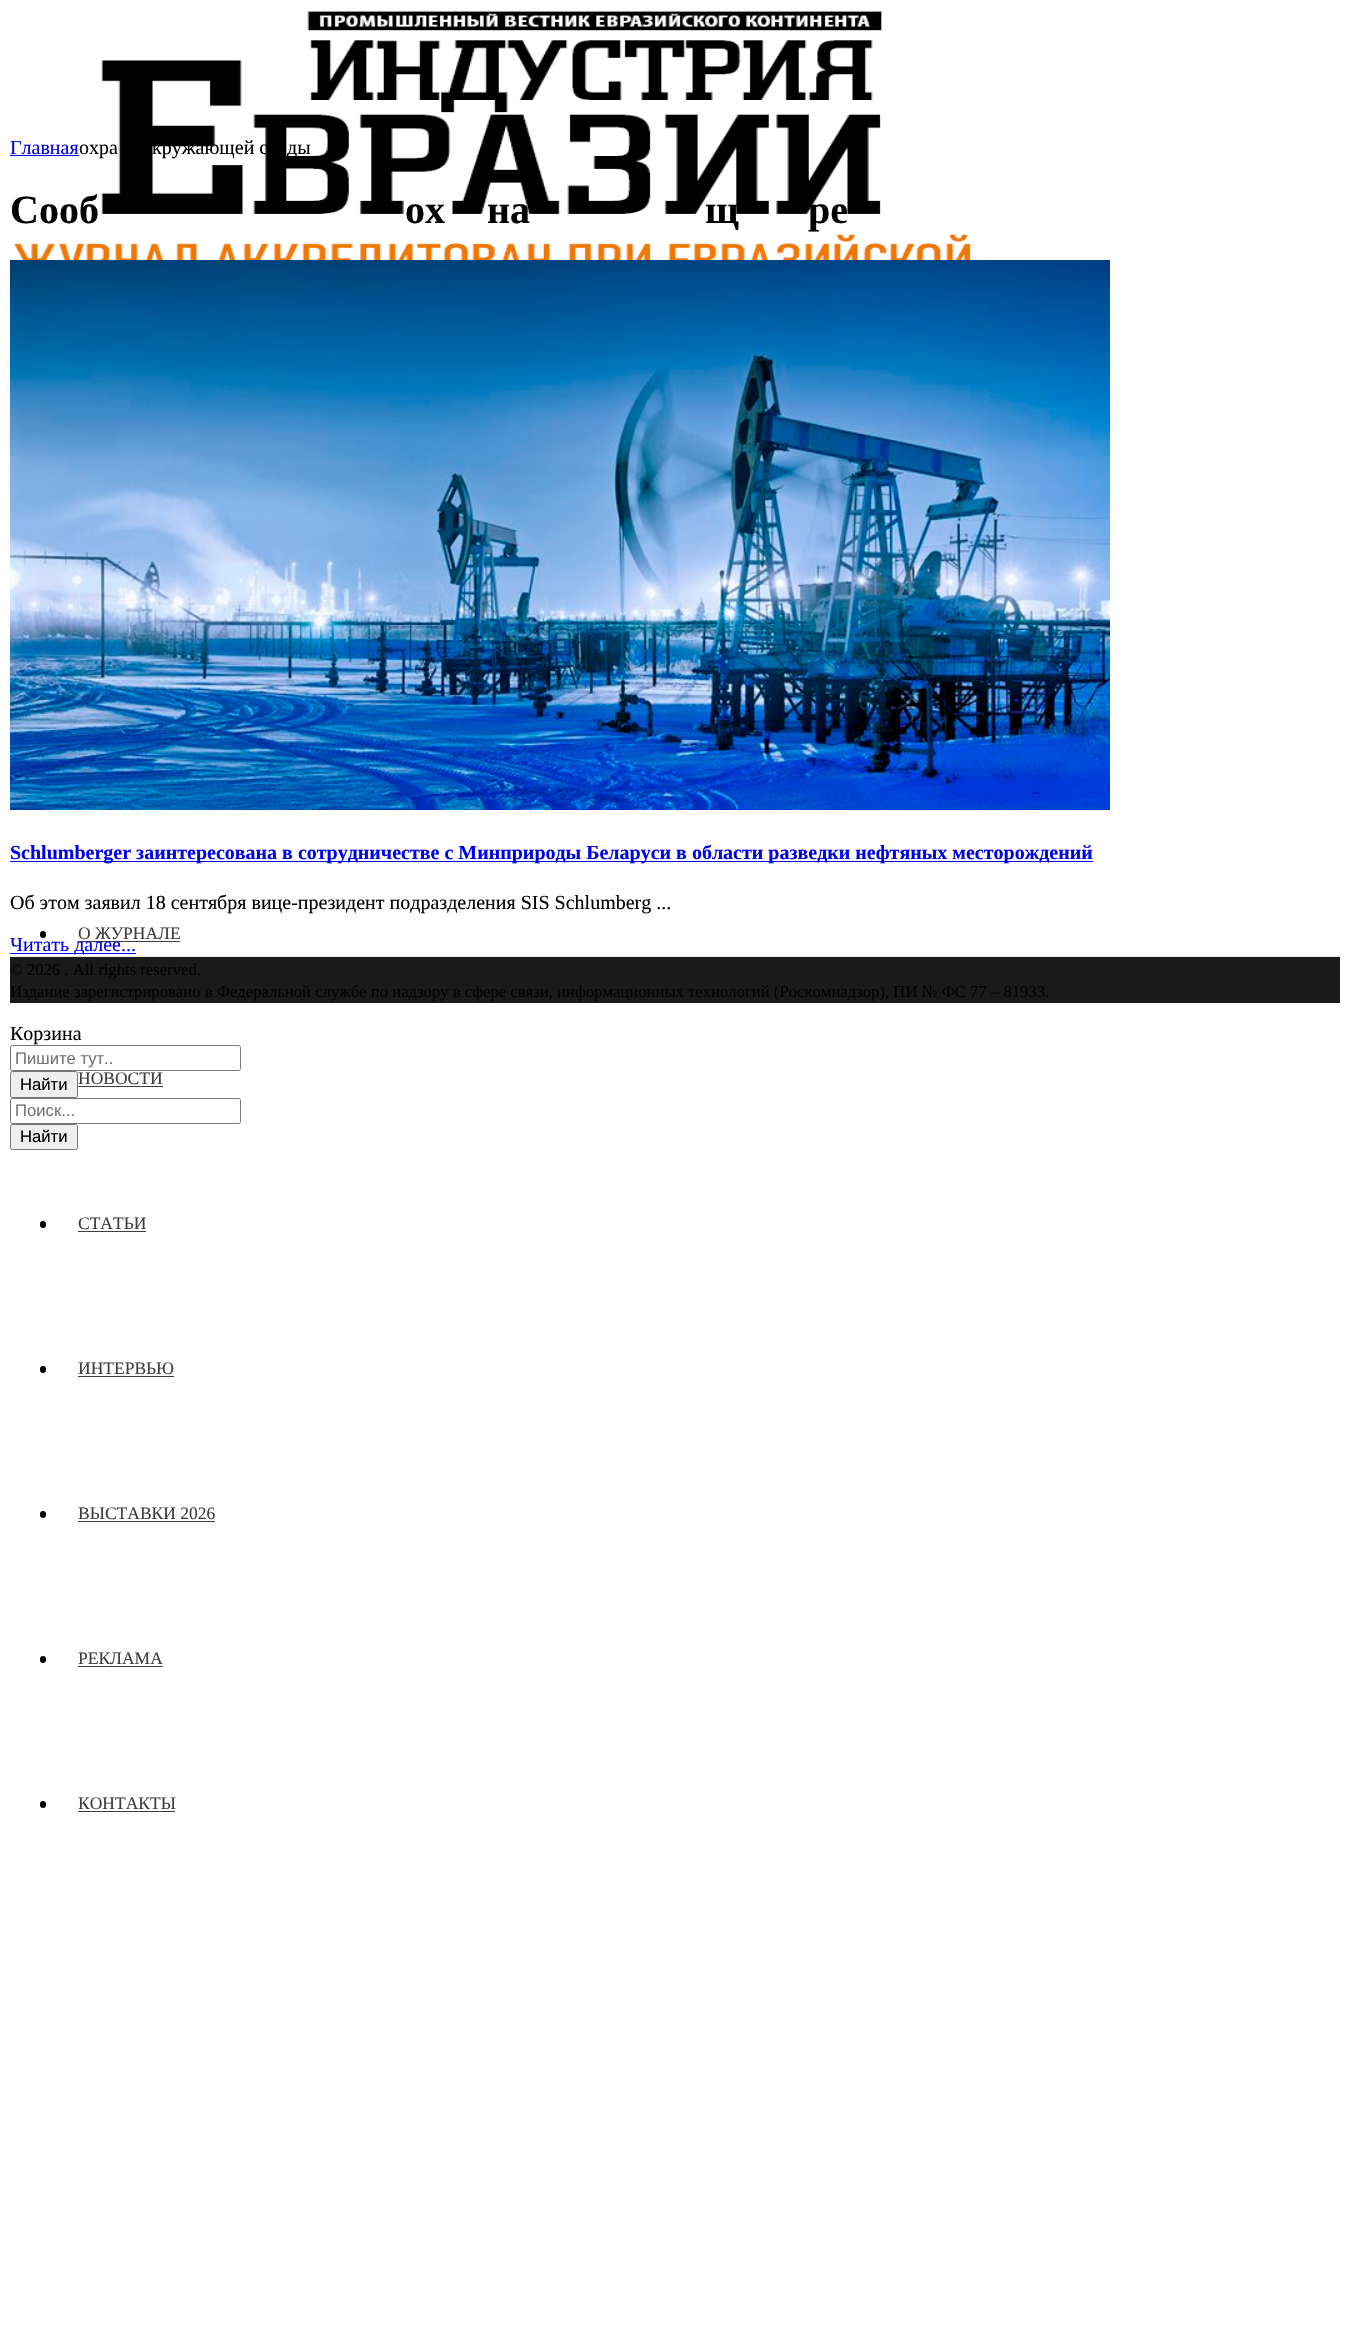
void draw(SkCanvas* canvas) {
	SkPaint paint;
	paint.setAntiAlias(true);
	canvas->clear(0xffffffff);
	canvas->drawImageRect(SkImages::DeferredFromEncodedData(SkData::MakeFromFileName("img2.png")), SkRect::MakeXYWH(11, 11, 960, 249), SkSamplingOptions());
	SkFont f1(fontMgr->matchFamilyStyle("Liberation Serif", SkFontStyle::Normal()), 20);
	f1.setSubpixel(true);
	paint.setColor(0xff0000ee);
	canvas->drawString("Главная", 10, 154, f1, paint);
	canvas->drawRect(SkRect::MakeXYWH(10, 155, 69, 1), paint);
	paint.setColor(0xff000000);
	canvas->drawString("охра", 79, 154, f1, paint);
	canvas->drawString("кружающей с", 152, 154, f1, paint);
	canvas->drawString("ды", 287, 154, f1, paint);
	SkFont f2(fontMgr->matchFamilyStyle("Liberation Serif", SkFontStyle::Bold()), 40);
	f2.setSubpixel(true);
	canvas->drawString("Сооб", 10, 223, f2, paint);
	canvas->drawString("ох", 405, 223, f2, paint);
	canvas->drawString("на", 487, 223, f2, paint);
	canvas->drawString("щ", 705, 223, f2, paint);
	canvas->drawString("ре", 808, 223, f2, paint);
	canvas->drawImageRect(SkImages::DeferredFromEncodedData(SkData::MakeFromFileName("img1.png")), SkRect::MakeXYWH(10, 260, 1100, 550), SkSamplingOptions());
	paint.setColor(0xff0000ee);
	canvas->drawRect(SkRect::MakeXYWH(10, 861, 1083, 1), paint);
	SkFont f3(fontMgr->matchFamilyStyle("Liberation Serif", SkFontStyle::Bold()), 20);
	f3.setSubpixel(true);
	canvas->drawString("Schlumberger заинтересована в сотрудничестве с Минприроды Беларуси в области разведки нефтяных месторождений", 10, 859, f3, paint);
	paint.setColor(0xff000000);
	canvas->drawString("Об этом заявил 18 сентября вице-президент подразделения SIS Schlumberg ...", 10, 909, f1, paint);
	paint.setColor(0xff0000ee);
	canvas->drawRect(SkRect::MakeXYWH(10, 953, 126, 1), paint);
	paint.setColor(0xff000000);
	canvas->drawRoundRect(SkRect::MakeXYWH(40, 931, 6, 7), 3, 3, paint);
	paint.setColor(0xff3d3d3d);
	canvas->drawRect(SkRect::MakeXYWH(78, 941, 102, 1), paint);
	paint.setColor(0xff0000ee);
	canvas->drawString("Читать далее...", 10, 951, f1, paint);
	SkFont f4(fontMgr->matchFamilyStyle("Liberation Serif", SkFontStyle::Normal()), 17.5);
	f4.setSubpixel(true);
	paint.setColor(0xff3d3d3d);
	canvas->drawString("О ЖУРНАЛЕ", 78, 939, f4, paint);
	canvas->drawString("НОВОСТИ", 78, 1084, f4, paint);
	canvas->drawRect(SkRect::MakeXYWH(78, 1086, 85, 1), paint);
	paint.setColor(0xff000000);
	canvas->drawRoundRect(SkRect::MakeXYWH(40, 1221, 6, 7), 3, 3, paint);
	paint.setColor(0xff3d3d3d);
	canvas->drawString("СТАТЬИ", 78, 1229, f4, paint);
	canvas->drawRect(SkRect::MakeXYWH(78, 1231, 68, 1), paint);
	paint.setColor(0xff000000);
	canvas->drawRoundRect(SkRect::MakeXYWH(40, 1366, 6, 7), 3, 3, paint);
	paint.setColor(0xff3d3d3d);
	canvas->drawString("ИНТЕРВЬЮ", 78, 1374, f4, paint);
	canvas->drawRect(SkRect::MakeXYWH(78, 1376, 96, 1), paint);
	paint.setColor(0xff000000);
	canvas->drawRoundRect(SkRect::MakeXYWH(40, 1511, 6, 7), 3, 3, paint);
	paint.setColor(0xff3d3d3d);
	canvas->drawString("ВЫСТАВКИ 2026", 78, 1519, f4, paint);
	canvas->drawRect(SkRect::MakeXYWH(78, 1521, 137, 1), paint);
	paint.setColor(0xff000000);
	canvas->drawRoundRect(SkRect::MakeXYWH(40, 1656, 6, 7), 3, 3, paint);
	paint.setColor(0xff3d3d3d);
	canvas->drawString("РЕКЛАМА", 78, 1664, f4, paint);
	canvas->drawRect(SkRect::MakeXYWH(78, 1666, 85, 1), paint);
	paint.setColor(0xff000000);
	canvas->drawRoundRect(SkRect::MakeXYWH(40, 1801, 6, 7), 3, 3, paint);
	paint.setColor(0xff3d3d3d);
	canvas->drawString("КОНТАКТЫ", 78, 1809, f4, paint);
	canvas->drawRect(SkRect::MakeXYWH(78, 1811, 97, 1), paint);
	paint.setColor(0xff1a1a1a);
	canvas->drawRect(SkRect::MakeXYWH(10, 957, 1330, 46), paint);
	paint.setColor(0xffeaeaea);
	canvas->drawRect(SkRect::MakeXYWH(10, 956, 1330, 1), paint);
	SkFont f5(fontMgr->matchFamilyStyle("Liberation Serif", SkFontStyle::Normal()), 16.67);
	f5.setSubpixel(true);
	paint.setColor(0xff000000);
	canvas->drawString("© 2026 . All rights reserved.", 10, 975, f5, paint);
	canvas->drawString("Издание зарегистрировано в Федеральной службе по надзору в сфере связи, информационных технологий (Роскомнадзор), ПИ № ФС 77 – 81933.", 10, 997, f5, paint);
	canvas->drawString("Корзина", 10, 1040, f1, paint);
	paint.setStroke(true);
	paint.setStrokeWidth(1);
	paint.setColor(0xff767676);
	canvas->drawRoundRect(SkRect::MakeXYWH(10.5, 1045.5, 230, 25), 2, 2, paint);
	SkFont f6(fontMgr->matchFamilyStyle("Liberation Sans", SkFontStyle::Normal()), 16.67);
	f6.setSubpixel(true);
	paint.setStroke(false);
	paint.setColor(0xff757575);
	canvas->drawString("Пишите тут..", 15, 1064, f6, paint);
	paint.setColor(0xffefefef);
	canvas->drawRoundRect(SkRect::MakeXYWH(10.5, 1071.5, 67, 26), 2, 2, paint);
	paint.setStroke(true);
	paint.setColor(0xff767676);
	canvas->drawRoundRect(SkRect::MakeXYWH(10.5, 1071.5, 67, 26), 2, 2, paint);
	paint.setStroke(false);
	paint.setColor(0xff000000);
	canvas->drawString("Найти", 20, 1090, f6, paint);
	paint.setStroke(true);
	paint.setColor(0xff767676);
	canvas->drawRoundRect(SkRect::MakeXYWH(10.5, 1098.5, 230, 25), 2, 2, paint);
	paint.setStroke(false);
	paint.setColor(0xff757575);
	canvas->drawString("Поиск...", 15, 1116, f6, paint);
	paint.setColor(0xffefefef);
	canvas->drawRoundRect(SkRect::MakeXYWH(10.5, 1124.5, 67, 25), 2, 2, paint);
	paint.setStroke(true);
	paint.setColor(0xff767676);
	canvas->drawRoundRect(SkRect::MakeXYWH(10.5, 1124.5, 67, 25), 2, 2, paint);
	paint.setStroke(false);
	paint.setColor(0xff000000);
	canvas->drawString("Найти", 20, 1142, f6, paint);
}
